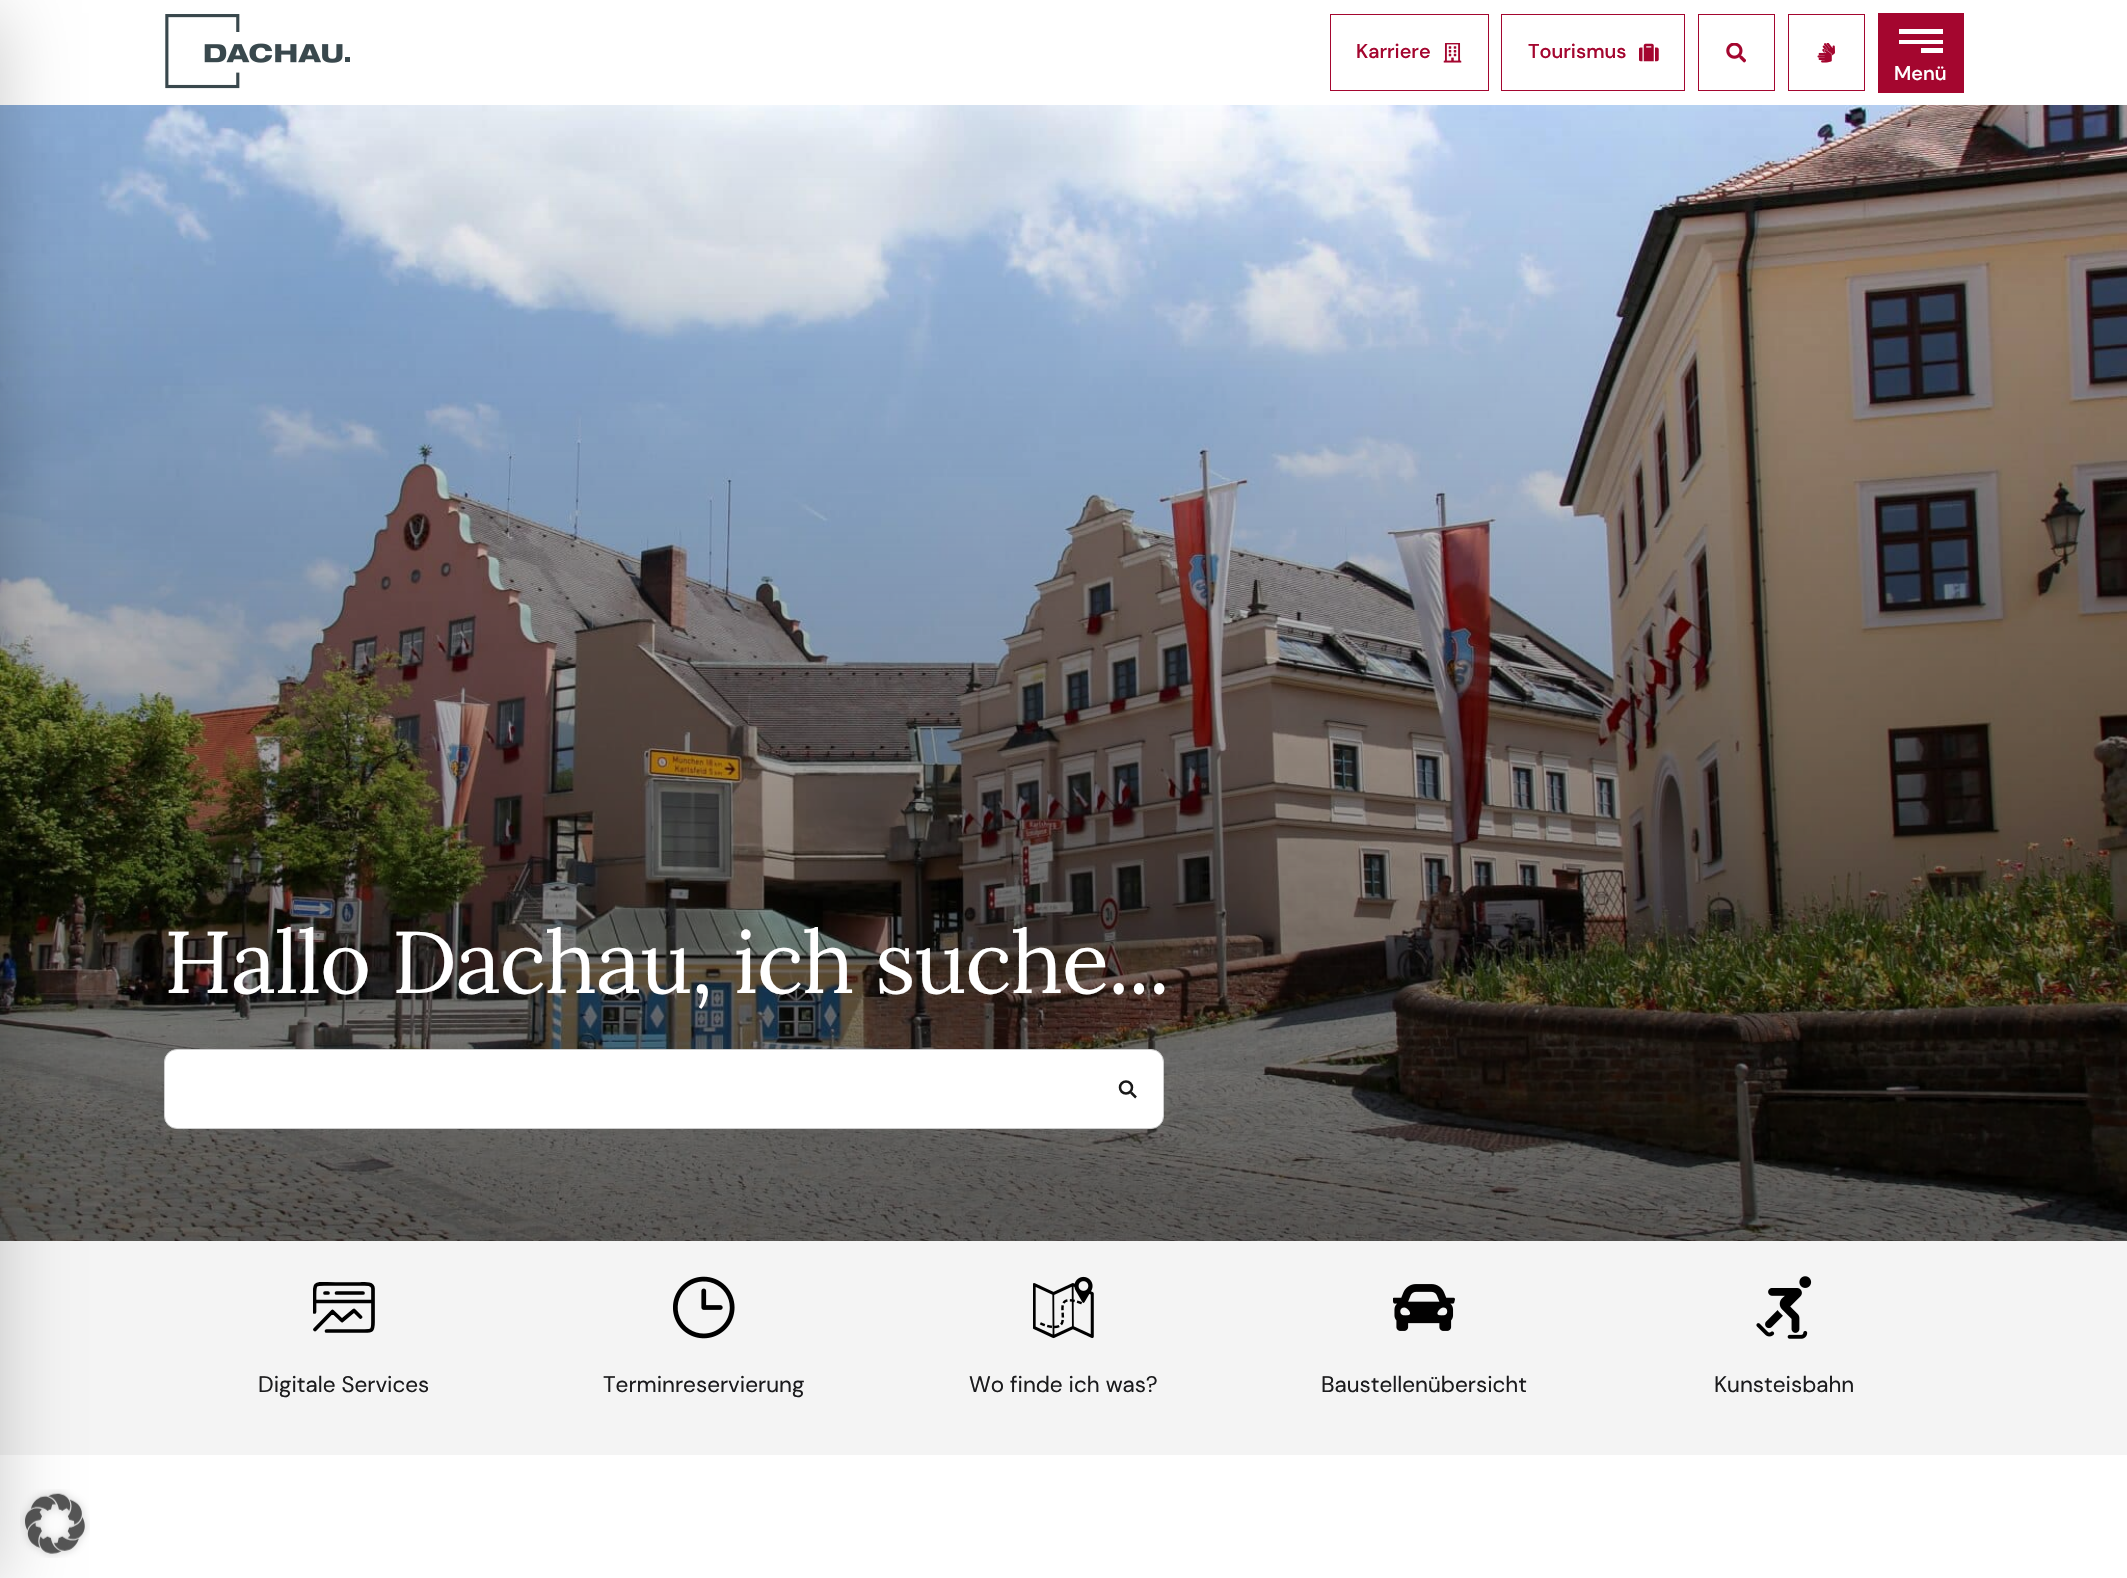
void draw(SkCanvas* canvas) {
	SkPaint paint;
	paint.setAntiAlias(true);
	auto spacedText = [&](const char* s, float x, float y, const SkFont& font, const SkPaint& ink, float letter, float word) {
		std::vector<SkGlyphID> glyphs(font.countText(s, strlen(s), SkTextEncoding::kUTF8));
		std::vector<float> xs(glyphs.size());
		font.textToGlyphs(s, strlen(s), SkTextEncoding::kUTF8, glyphs);
		font.getXPos(glyphs, xs, x);
		float extra = 0;
		for (size_t i = 0; i < glyphs.size(); i++) {
			xs[i] += extra;
			extra += letter + word * (glyphs[i] == font.unicharToGlyph(' '));
		}
		canvas->drawTextBlob(SkTextBlob::MakeFromPosHGlyphs(glyphs, xs, y, font), 0, 0, ink);
	};
	auto svgPath = [&](const char* data, bool evenOdd = false) {
		SkPath result = *SkParsePath::FromSVGString(data);
		if (evenOdd) result.setFillType(SkPathFillType::kEvenOdd);
		return result;
	};
	canvas->clear(0xffffffff);
	canvas->drawImageRect(SkImages::DeferredFromEncodedData(SkData::MakeFromFileName("img6.png")), SkRect::MakeXYWH(0, 105, 2127, 1136), SkSamplingOptions());
	paint.setColor(0xfff4f4f4);
	canvas->drawRect(SkRect::MakeXYWH(0, 1241, 2127, 214), paint);
	canvas->drawImageRect(SkImages::DeferredFromEncodedData(SkData::MakeFromFileName("img11.png")), SkRect::MakeXYWH(20, 1489, 70, 69), SkSamplingOptions());
	paint.setColor(0x33000000);
	paint.setMaskFilter(SkMaskFilter::MakeBlur(kNormal_SkBlurStyle, 37.5));
	canvas->drawRect(SkRect::MakeXYWH(-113, 13, 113, 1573), paint);
	paint.setMaskFilter(nullptr);
	canvas->drawImageRect(SkImages::DeferredFromEncodedData(SkData::MakeFromFileName("img1.png")), SkRect::MakeXYWH(165, 14, 185, 75), SkSamplingOptions());
	paint.setStroke(true);
	paint.setStrokeWidth(1);
	paint.setColor(0xffa4062f);
	canvas->drawRect(SkRect::MakeXYWH(1330.5, 14.5, 158, 76), paint);
	SkFont f1(fontMgr->matchFamilyStyle("DM Sans", SkFontStyle(500, SkFontStyle::kNormal_Width, SkFontStyle::kUpright_Slant)), 20);
	f1.setSubpixel(true);
	paint.setStroke(false);
	canvas->drawString("Karriere", 1356, 58, f1, paint);
	canvas->drawImageRect(SkImages::DeferredFromEncodedData(SkData::MakeFromFileName("img2.png")), SkRect::MakeXYWH(1443, 43, 19, 20), SkSamplingOptions());
	paint.setStroke(true);
	canvas->drawRect(SkRect::MakeXYWH(1501.5, 14.5, 183, 76), paint);
	paint.setStroke(false);
	canvas->drawString("Tourismus", 1528, 58, f1, paint);
	canvas->drawImageRect(SkImages::DeferredFromEncodedData(SkData::MakeFromFileName("img3.png")), SkRect::MakeXYWH(1639, 43, 20, 19), SkSamplingOptions());
	paint.setStroke(true);
	canvas->drawRect(SkRect::MakeXYWH(1698.5, 14.5, 76, 76), paint);
	canvas->drawImageRect(SkImages::DeferredFromEncodedData(SkData::MakeFromFileName("img4.png")), SkRect::MakeXYWH(1726, 43, 20, 20), SkSamplingOptions());
	canvas->drawRect(SkRect::MakeXYWH(1788.5, 14.5, 76, 76), paint);
	canvas->drawImageRect(SkImages::DeferredFromEncodedData(SkData::MakeFromFileName("img5.png")), SkRect::MakeXYWH(1817, 43, 18, 20), SkSamplingOptions());
	paint.setStroke(false);
	canvas->drawRect(SkRect::MakeXYWH(1878, 13, 86, 80), paint);
	paint.setColor(0xffffffff);
	canvas->drawRect(SkRect::MakeXYWH(1921, 48, 22, 5), paint);
	canvas->drawRect(SkRect::MakeXYWH(1899, 40, 44, 4), paint);
	canvas->drawRect(SkRect::MakeXYWH(1899, 29, 44, 5), paint);
	canvas->drawString("Menü", 1894, 80, f1, paint);
	SkFont f2(fontMgr->matchFamilyStyle("Lora", SkFontStyle::Normal()), 87.5);
	f2.setSubpixel(true);
	spacedText("Hallo Dachau, ich suche...", 164, 993, f2, paint, -1.25, 0);
	canvas->drawRoundRect(SkRect::MakeXYWH(164.5, 1049.5, 999, 79), 12.5, 12.5, paint);
	paint.setStroke(true);
	paint.setColor(0xffcccccc);
	canvas->drawRoundRect(SkRect::MakeXYWH(164.5, 1049.5, 999, 79), 12.5, 12.5, paint);
	paint.setStrokeWidth(2.5);
	paint.setColor(0xff181818);
	canvas->drawCircle(1126, 1087.5, 6, paint);
	canvas->drawPath(svgPath("M1131 1092.5L1136 1097.5"), paint);
	canvas->save();
	canvas->clipRect(SkRect::MakeXYWH(313, 1276, 62, 63));
	paint.setStrokeWidth(3.7);
	paint.setStrokeCap(SkPaint::kRound_Cap);
	paint.setStrokeJoin(SkPaint::kRound_Join);
	paint.setColor(0xff000000);
	canvas->drawPath(svgPath("M315 1329.5L332.5 1311.5L342 1320.5L354 1310.5L360.5 1317M373 1288.5C373 1282.5 363.5 1284 360 1284H335.5C312.5 1284 314.5 1280.5 314.5 1301.5H373ZM373 1299V1322C373 1332 371.5 1331 361.5 1331H326.5M336.5 1293H363M325 1293H328M314.5 1299V1312"), paint);
	canvas->restore();
	SkFont f3(fontMgr->matchFamilyStyle("DM Sans", SkFontStyle::Normal()), 22.5);
	f3.setSubpixel(true);
	paint.setStroke(false);
	paint.setColor(0xff1b1b1d);
	canvas->drawString("Digitale Services", 258, 1392, f3, paint);
	canvas->drawImageRect(SkImages::DeferredFromEncodedData(SkData::MakeFromFileName("img7.png")), SkRect::MakeXYWH(673, 1276, 62, 63), SkSamplingOptions());
	canvas->drawString("Terminreservierung", 603, 1392, f3, paint);
	canvas->drawImageRect(SkImages::DeferredFromEncodedData(SkData::MakeFromFileName("img8.png")), SkRect::MakeXYWH(1033, 1276, 61, 63), SkSamplingOptions());
	canvas->drawString("Wo finde ich was?", 969, 1392, f3, paint);
	canvas->drawImageRect(SkImages::DeferredFromEncodedData(SkData::MakeFromFileName("img9.png")), SkRect::MakeXYWH(1393, 1284, 62, 47), SkSamplingOptions());
	canvas->drawString("Baustellenübersicht", 1321, 1392, f3, paint);
	canvas->drawImageRect(SkImages::DeferredFromEncodedData(SkData::MakeFromFileName("img10.png")), SkRect::MakeXYWH(1756, 1276, 56, 63), SkSamplingOptions());
	canvas->drawString("Kunsteisbahn", 1714, 1392, f3, paint);
}
